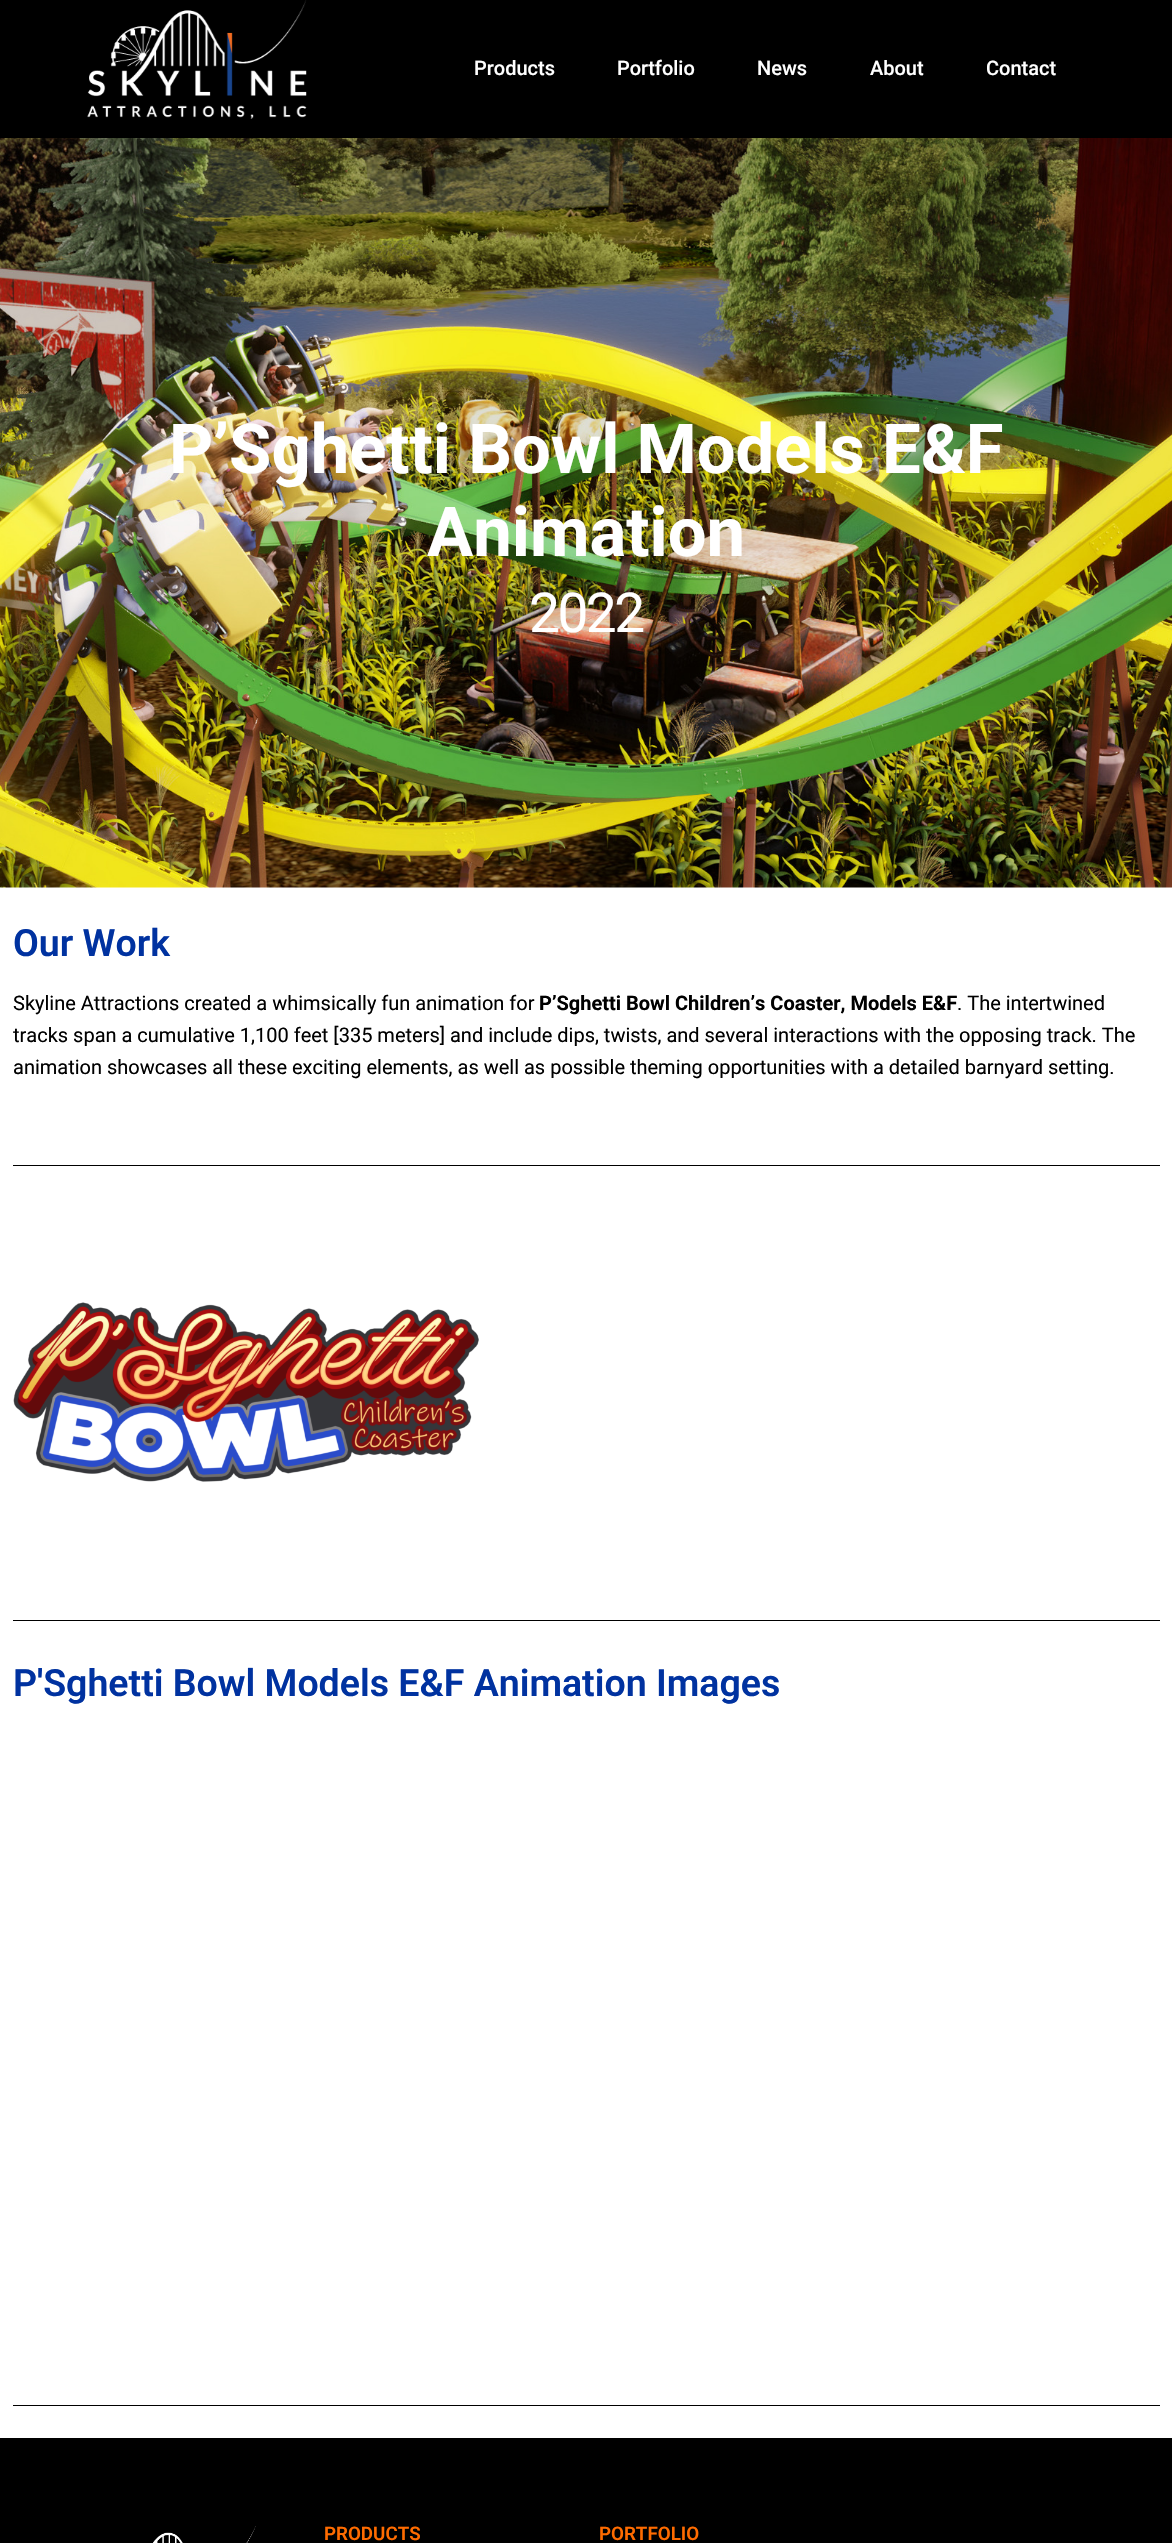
void draw(SkCanvas* canvas) {
	SkPaint paint;
	paint.setAntiAlias(true);
	auto spacedText = [&](const char* s, float x, float y, const SkFont& font, const SkPaint& ink, float letter, float word) {
		std::vector<SkGlyphID> glyphs(font.countText(s, strlen(s), SkTextEncoding::kUTF8));
		std::vector<float> xs(glyphs.size());
		font.textToGlyphs(s, strlen(s), SkTextEncoding::kUTF8, glyphs);
		font.getXPos(glyphs, xs, x);
		float extra = 0;
		for (size_t i = 0; i < glyphs.size(); i++) {
			xs[i] += extra;
			extra += letter + word * (glyphs[i] == font.unicharToGlyph(' '));
		}
		canvas->drawTextBlob(SkTextBlob::MakeFromPosHGlyphs(glyphs, xs, y, font), 0, 0, ink);
	};
	canvas->clear(0xffffffff);
	paint.setColor(0xff000000);
	canvas->drawRect(SkRect::MakeXYWH(0, 0, 1172, 138), paint);
	canvas->drawImageRect(SkImages::DeferredFromEncodedData(SkData::MakeFromFileName("img1.png")), SkRect::MakeXYWH(87, 0, 220, 119), SkSamplingOptions());
	SkFont f1(fontMgr->matchFamilyStyle("Roboto", SkFontStyle(500, SkFontStyle::kNormal_Width, SkFontStyle::kUpright_Slant)), 20);
	f1.setSubpixel(true);
	paint.setColor(0xffffffff);
	canvas->drawString("Products", 474, 75, f1, paint);
	canvas->drawString("Portfolio", 617, 75, f1, paint);
	canvas->drawString("News", 757, 75, f1, paint);
	canvas->drawString("About", 870, 75, f1, paint);
	canvas->drawString("Contact", 986, 75, f1, paint);
	canvas->drawImageRect(SkImages::DeferredFromEncodedData(SkData::MakeFromFileName("img2.png")), SkRect::MakeXYWH(0, 138, 1172, 750), SkSamplingOptions());
	SkFont f2(fontMgr->matchFamilyStyle("Roboto", SkFontStyle::Bold()), 68.75);
	f2.setSubpixel(true);
	canvas->drawString("P’Sghetti Bowl Models E&F", 169, 473, f2, paint);
	canvas->drawString("Animation", 427, 556, f2, paint);
	SkFont f3(fontMgr->matchFamilyStyle("Roboto", SkFontStyle::Normal()), 55);
	f3.setSubpixel(true);
	spacedText("2022", 529, 632, f3, paint, -2.5, 0);
	SkFont f4(fontMgr->matchFamilyStyle("Roboto", SkFontStyle(600, SkFontStyle::kNormal_Width, SkFontStyle::kUpright_Slant)), 37.5);
	f4.setSubpixel(true);
	paint.setColor(0xff0032a0);
	canvas->drawString("Our Work", 13, 956, f4, paint);
	SkFont f5(fontMgr->matchFamilyStyle("Roboto", SkFontStyle::Normal()), 20);
	f5.setSubpixel(true);
	paint.setColor(0xff000000);
	canvas->drawString("Skyline Attractions created a whimsically fun animation for", 13, 1010, f5, paint);
	SkFont f6(fontMgr->matchFamilyStyle("Roboto", SkFontStyle::Bold()), 20);
	f6.setSubpixel(true);
	canvas->drawString("P’Sghetti Bowl Children’s Coaster, Models E&F", 539, 1010, f6, paint);
	canvas->drawString(". The intertwined", 957, 1010, f5, paint);
	canvas->drawString("tracks span a cumulative 1,100 feet [335 meters] and include dips, twists, and several interactions with the opposing track. The", 13, 1042, f5, paint);
	canvas->drawString("animation showcases all these exciting elements, as well as possible theming opportunities with a detailed barnyard setting.", 13, 1074, f5, paint);
	canvas->drawRect(SkRect::MakeXYWH(13, 1165, 1147, 1), paint);
	canvas->drawImageRect(SkImages::DeferredFromEncodedData(SkData::MakeFromFileName("img3.png")), SkRect::MakeXYWH(13, 1302, 466, 180), SkSamplingOptions());
	canvas->drawRect(SkRect::MakeXYWH(13, 1620, 1147, 1), paint);
	paint.setColor(0xff0032a0);
	canvas->drawString("P'Sghetti Bowl Models E&F Animation Images", 13, 1696, f4, paint);
	paint.setColor(0xff000000);
	canvas->drawRect(SkRect::MakeXYWH(13, 2405, 1147, 1), paint);
	canvas->drawRect(SkRect::MakeXYWH(0, 2438, 1172, 105), paint);
	canvas->drawImageRect(SkImages::DeferredFromEncodedData(SkData::MakeFromFileName("img4.png")), SkRect::MakeXYWH(153, 2526, 103, 17), SkSamplingOptions());
	SkFont f7(fontMgr->matchFamilyStyle("Roboto", SkFontStyle(600, SkFontStyle::kNormal_Width, SkFontStyle::kUpright_Slant)), 18.75);
	f7.setSubpixel(true);
	paint.setColor(0xffff6b00);
	canvas->drawString("PRODUCTS", 324, 2540, f7, paint);
	canvas->drawString("PORTFOLIO", 599, 2540, f7, paint);
}
